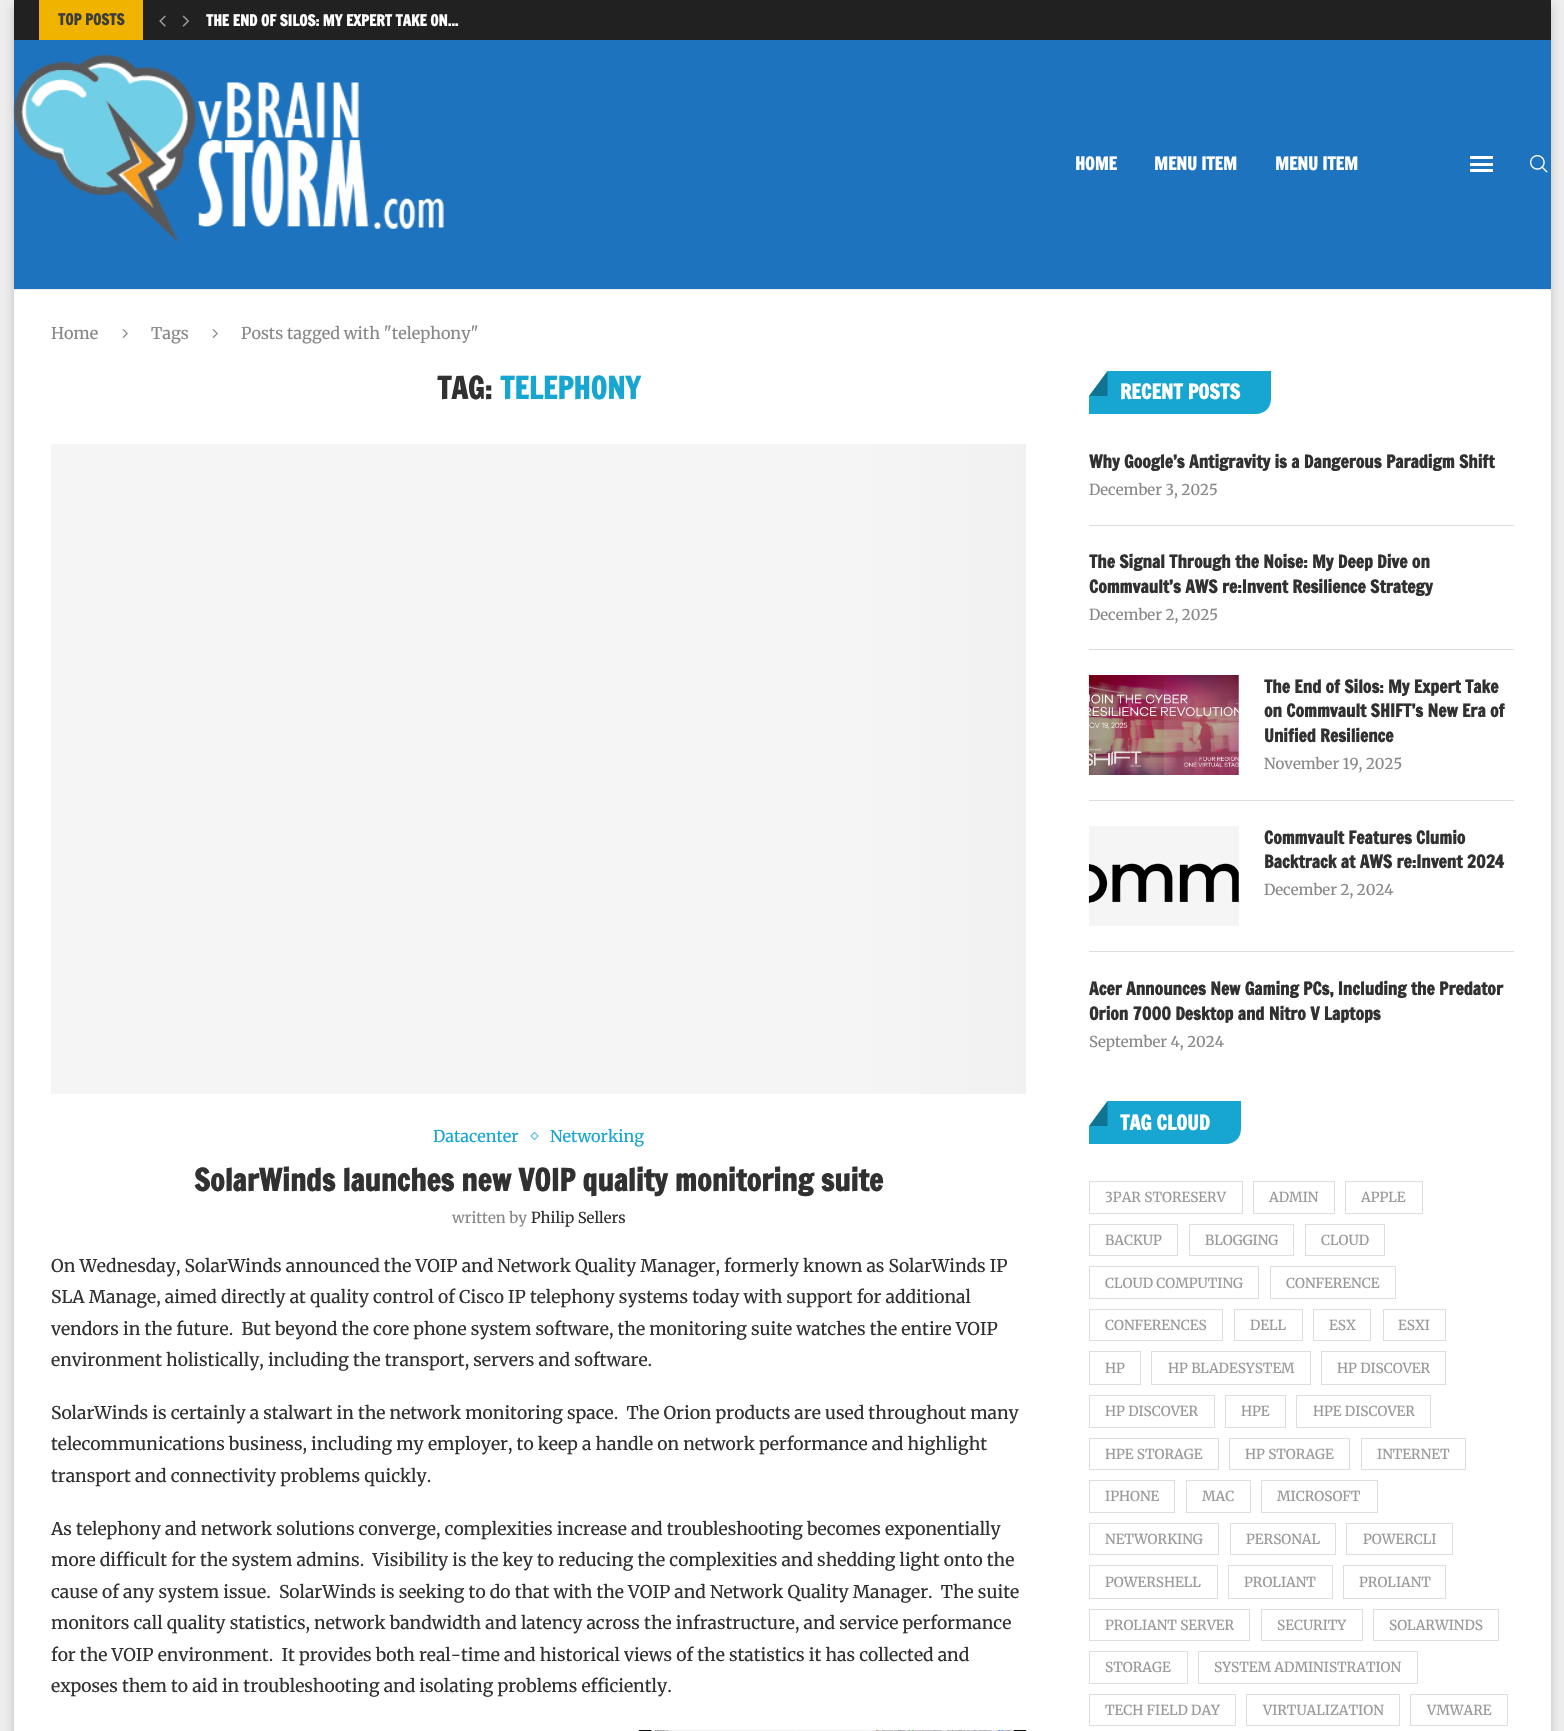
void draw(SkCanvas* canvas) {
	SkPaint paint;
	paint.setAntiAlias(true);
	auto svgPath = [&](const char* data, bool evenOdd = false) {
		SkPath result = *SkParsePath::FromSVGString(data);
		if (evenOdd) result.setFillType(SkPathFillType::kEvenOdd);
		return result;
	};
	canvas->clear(0xffeeeeee);
	paint.setColor(0x33000000);
	paint.setMaskFilter(SkMaskFilter::MakeBlur(kNormal_SkBlurStyle, 5));
	canvas->drawRect(SkRect::MakeXYWH(14, 6, 1537, 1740), paint);
	paint.setMaskFilter(nullptr);
	paint.setColor(0xffffffff);
	canvas->drawRect(SkRect::MakeXYWH(14, 290, 1537, 1441), paint);
	paint.setColor(0xff212121);
	canvas->drawRect(SkRect::MakeXYWH(14, 0, 1537, 40), paint);
	paint.setColor(0xffefb300);
	canvas->drawRect(SkRect::MakeXYWH(39, 0, 104, 40), paint);
	SkFont f1(fontMgr->matchFamilyStyle("Francois One", SkFontStyle::Bold()), 15);
	f1.setSubpixel(true);
	paint.setColor(0xff3d3d3d);
	canvas->drawString("TOP POSTS", 58, 25, f1, paint);
	canvas->drawImageRect(SkImages::DeferredFromEncodedData(SkData::MakeFromFileName("img1.png")), SkRect::MakeXYWH(159, 15, 7, 12), SkSamplingOptions());
	canvas->drawImageRect(SkImages::DeferredFromEncodedData(SkData::MakeFromFileName("img2.png")), SkRect::MakeXYWH(182, 15, 7, 12), SkSamplingOptions());
	paint.setColor(0xffffffff);
	canvas->drawString("THE END OF SILOS: MY EXPERT TAKE ON...", 206, 26, f1, paint);
	paint.setColor(0xff1e73be);
	canvas->drawRect(SkRect::MakeXYWH(14, 40, 1537, 249), paint);
	paint.setColor(0xffececec);
	canvas->drawRect(SkRect::MakeXYWH(14, 289, 1537, 1), paint);
	canvas->drawImageRect(SkImages::DeferredFromEncodedData(SkData::MakeFromFileName("img3.png")), SkRect::MakeXYWH(13, 54, 431, 188), SkSamplingOptions());
	SkFont f2(fontMgr->matchFamilyStyle("Francois One", SkFontStyle::Bold()), 17.5);
	f2.setSubpixel(true);
	paint.setColor(0xffffffff);
	canvas->drawString("HOME", 1075, 170, f2, paint);
	canvas->drawString("MENU ITEM", 1154, 170, f2, paint);
	canvas->drawString("MENU ITEM", 1275, 170, f2, paint);
	canvas->drawRect(SkRect::MakeXYWH(1470, 156, 23, 3), paint);
	canvas->drawRect(SkRect::MakeXYWH(1470, 169, 23, 3), paint);
	canvas->drawRect(SkRect::MakeXYWH(1470, 163, 23, 3), paint);
	canvas->drawImageRect(SkImages::DeferredFromEncodedData(SkData::MakeFromFileName("img4.png")), SkRect::MakeXYWH(1530, 155, 18, 18), SkSamplingOptions());
	SkFont f3(fontMgr->matchFamilyStyle("Merriweather", SkFontStyle::Normal()), 16.25);
	f3.setSubpixel(true);
	paint.setColor(0xff888888);
	canvas->drawString("Home", 51, 339, f3, paint);
	canvas->drawImageRect(SkImages::DeferredFromEncodedData(SkData::MakeFromFileName("img5.png")), SkRect::MakeXYWH(122, 329, 6, 9), SkSamplingOptions());
	canvas->drawString("Tags", 151, 339, f3, paint);
	canvas->drawImageRect(SkImages::DeferredFromEncodedData(SkData::MakeFromFileName("img5.png")), SkRect::MakeXYWH(212, 329, 6, 9), SkSamplingOptions());
	canvas->drawString("Posts tagged with \"telephony\"", 241, 339, f3, paint);
	SkFont f4(fontMgr->matchFamilyStyle("Francois One", SkFontStyle::Bold()), 30);
	f4.setSubpixel(true);
	paint.setColor(0xff313131);
	canvas->drawString("TAG:", 437, 399, f4, paint);
	paint.setColor(0xff17a5d1);
	canvas->drawString("TELEPHONY", 500, 399, f4, paint);
	paint.setColor(0xfff5f5f5);
	canvas->drawRect(SkRect::MakeXYWH(51, 444, 125, 650), paint);
	{
		const SkColor colors[] = {0xfff5f5f5, 0xffefefef, 0xfff5f5f5, 0xfff5f5f5};
		const float stops[] = {0, 0.15, 0.4, 1};
		const SkPoint ends[] = {{1301, 1506}, {176, 1506}};
		paint.setShader(SkGradientShader::MakeLinear(ends, colors, stops, 4, SkTileMode::kClamp));
		paint.setAlpha(255);
	}
	canvas->drawRect(SkRect::MakeXYWH(176, 444, 850, 650), paint);
	paint.setShader(nullptr);
	paint.setColor(0xff17a5d1);
	canvas->drawString("Datacenter", 433, 1142, f3, paint);
	paint.setStroke(true);
	paint.setStrokeWidth(1.3);
	paint.setColor(0xff68c5e1);
	canvas->drawPath(svgPath("M534.5 1132.5L538 1136L534.5 1139.5L531 1136Z"), paint);
	paint.setStroke(false);
	paint.setColor(0xff17a5d1);
	canvas->drawString("Networking", 550, 1142, f3, paint);
	paint.setColor(0xff313131);
	canvas->drawString("SolarWinds launches new VOIP quality monitoring suite", 194, 1191, f4, paint);
	SkFont f5(fontMgr->matchFamilyStyle("Merriweather", SkFontStyle::Normal()), 15);
	f5.setSubpixel(true);
	paint.setColor(0xff888888);
	canvas->drawString("written by", 452, 1223, f5, paint);
	paint.setColor(0xff313131);
	canvas->drawString("Philip Sellers", 531, 1223, f5, paint);
	SkFont f6(fontMgr->matchFamilyStyle("Merriweather", SkFontStyle::Normal()), 17.5);
	f6.setSubpixel(true);
	canvas->drawString("On Wednesday, SolarWinds announced the VOIP and Network Quality Manager, formerly known as SolarWinds IP", 51, 1272, f6, paint);
	canvas->drawString("SLA Manage, aimed directly at quality control of Cisco IP telephony systems today with support for additional", 51, 1303, f6, paint);
	canvas->drawString("vendors in the future.  But beyond the core phone system software, the monitoring suite watches the entire VOIP", 51, 1335, f6, paint);
	canvas->drawString("environment holistically, including the transport, servers and software.", 51, 1366, f6, paint);
	canvas->drawString("SolarWinds is certainly a stalwart in the network monitoring space.  The Orion products are used throughout many", 51, 1419, f6, paint);
	canvas->drawString("telecommunications business, including my employer, to keep a handle on network performance and highlight", 51, 1450, f6, paint);
	canvas->drawString("transport and connectivity problems quickly.", 51, 1482, f6, paint);
	canvas->drawString("As telephony and network solutions converge, complexities increase and troubleshooting becomes exponentially", 51, 1535, f6, paint);
	canvas->drawString("more difficult for the system admins.  Visibility is the key to reducing the complexities and shedding light onto the", 51, 1566, f6, paint);
	canvas->drawString("cause of any system issue.  SolarWinds is seeking to do that with the VOIP and Network Quality Manager.  The suite", 51, 1598, f6, paint);
	canvas->drawString("monitors call quality statistics, network bandwidth and latency across the infrastructure, and service performance", 51, 1629, f6, paint);
	canvas->drawString("for the VOIP environment.  It provides both real-time and historical views of the statistics it has collected and", 51, 1661, f6, paint);
	canvas->drawString("exposes them to aid in troubleshooting and isolating problems efficiently.", 51, 1692, f6, paint);
	canvas->drawImageRect(SkImages::DeferredFromEncodedData(SkData::MakeFromFileName("img6.png")), SkRect::MakeXYWH(638, 1730, 389, 1), SkSamplingOptions());
	paint.setColor(0xff0c0c0c);
	canvas->drawRect(SkRect::MakeXYWH(639, 1730, 387, 1), paint);
	canvas->drawImageRect(SkImages::DeferredFromEncodedData(SkData::MakeFromFileName("img7.png")), SkRect::MakeXYWH(651, 1730, 363, 1), SkSamplingOptions());
	paint.setColor(0xff17a5d1);
	canvas->drawPath(svgPath("M1089 371H1271V399C1271 407.5 1264.5 414 1256 414H1089Z"), paint);
	paint.setColor(0xffffffff);
	canvas->drawPath(svgPath("M1089 371H1107.5L1089 396Z"), paint);
	paint.setColor(0x4d000000);
	canvas->drawPath(svgPath("M1107.5 396H1089L1107.5 371Z"), paint);
	SkFont f7(fontMgr->matchFamilyStyle("Francois One", SkFontStyle::Bold()), 20);
	f7.setSubpixel(true);
	paint.setColor(0xffffffff);
	canvas->drawString("RECENT POSTS", 1120, 399, f7, paint);
	paint.setColor(0xffdedede);
	canvas->drawRect(SkRect::MakeXYWH(1089, 525, 425, 1), paint);
	paint.setColor(0xff313131);
	canvas->drawString("Why Google’s Antigravity is a Dangerous Paradigm Shift", 1089, 468, f2, paint);
	paint.setColor(0xff888888);
	canvas->drawString("December 3, 2025", 1089, 495, f5, paint);
	paint.setColor(0xffdedede);
	canvas->drawRect(SkRect::MakeXYWH(1089, 649, 425, 1), paint);
	paint.setColor(0xff313131);
	canvas->drawString("The Signal Through the Noise: My Deep Dive on", 1089, 568, f2, paint);
	canvas->drawString("Commvault’s AWS re:Invent Resilience Strategy", 1089, 593, f2, paint);
	paint.setColor(0xff888888);
	canvas->drawString("December 2, 2025", 1089, 620, f5, paint);
	paint.setColor(0xffdedede);
	canvas->drawRect(SkRect::MakeXYWH(1089, 800, 425, 1), paint);
	canvas->drawImageRect(SkImages::DeferredFromEncodedData(SkData::MakeFromFileName("img8.png")), SkRect::MakeXYWH(1088, 675, 151, 100), SkSamplingOptions());
	paint.setColor(0xff313131);
	canvas->drawString("The End of Silos: My Expert Take", 1264, 693, f2, paint);
	canvas->drawString("on Commvault SHIFT’s New Era of", 1264, 717, f2, paint);
	canvas->drawString("Unified Resilience", 1264, 742, f2, paint);
	paint.setColor(0xff888888);
	canvas->drawString("November 19, 2025", 1264, 769, f5, paint);
	paint.setColor(0xffdedede);
	canvas->drawRect(SkRect::MakeXYWH(1089, 951, 425, 1), paint);
	paint.setColor(0xfff5f5f5);
	canvas->drawRect(SkRect::MakeXYWH(1089, 826, 150, 100), paint);
	canvas->drawImageRect(SkImages::DeferredFromEncodedData(SkData::MakeFromFileName("img9.png")), SkRect::MakeXYWH(1088, 863, 151, 40), SkSamplingOptions());
	paint.setColor(0xff313131);
	canvas->drawString("Commvault Features Clumio", 1264, 844, f2, paint);
	canvas->drawString("Backtrack at AWS re:Invent 2024", 1264, 868, f2, paint);
	paint.setColor(0xff888888);
	canvas->drawString("December 2, 2024", 1264, 895, f5, paint);
	paint.setColor(0xff313131);
	canvas->drawString("Acer Announces New Gaming PCs, Including the Predator", 1089, 995, f2, paint);
	canvas->drawString("Orion 7000 Desktop and Nitro V Laptops", 1089, 1020, f2, paint);
	paint.setColor(0xff888888);
	canvas->drawString("September 4, 2024", 1089, 1047, f5, paint);
	paint.setColor(0xff17a5d1);
	canvas->drawPath(svgPath("M1089 1101H1241V1129C1241 1137.5 1234.5 1144 1226 1144H1089Z"), paint);
	paint.setColor(0xffffffff);
	canvas->drawPath(svgPath("M1089 1101H1107.5L1089 1126Z"), paint);
	paint.setColor(0x4d000000);
	canvas->drawPath(svgPath("M1107.5 1126H1089L1107.5 1101Z"), paint);
	paint.setColor(0xffffffff);
	canvas->drawString("TAG CLOUD", 1120, 1130, f7, paint);
	paint.setStroke(true);
	paint.setStrokeWidth(1);
	paint.setColor(0xffdedede);
	canvas->drawRect(SkRect::MakeXYWH(1089.5, 1181.5, 153, 32), paint);
	SkFont f8(fontMgr->matchFamilyStyle("Merriweather", SkFontStyle::Normal()), 13.75);
	f8.setSubpixel(true);
	paint.setStroke(false);
	paint.setColor(0xff999999);
	canvas->drawString("3PAR STORESERV", 1105, 1202, f8, paint);
	paint.setStroke(true);
	paint.setColor(0xffdedede);
	canvas->drawRect(SkRect::MakeXYWH(1253.5, 1181.5, 81, 32), paint);
	paint.setStroke(false);
	paint.setColor(0xff999999);
	canvas->drawString("ADMIN", 1269, 1202, f8, paint);
	paint.setStroke(true);
	paint.setColor(0xffdedede);
	canvas->drawRect(SkRect::MakeXYWH(1345.5, 1181.5, 77, 32), paint);
	paint.setStroke(false);
	paint.setColor(0xff999999);
	canvas->drawString("APPLE", 1361, 1202, f8, paint);
	paint.setStroke(true);
	paint.setColor(0xffdedede);
	canvas->drawRect(SkRect::MakeXYWH(1089.5, 1224.5, 88, 31), paint);
	paint.setStroke(false);
	paint.setColor(0xff999999);
	canvas->drawString("BACKUP", 1105, 1245, f8, paint);
	paint.setStroke(true);
	paint.setColor(0xffdedede);
	canvas->drawRect(SkRect::MakeXYWH(1189.5, 1224.5, 104, 31), paint);
	paint.setStroke(false);
	paint.setColor(0xff999999);
	canvas->drawString("BLOGGING", 1205, 1245, f8, paint);
	paint.setStroke(true);
	paint.setColor(0xffdedede);
	canvas->drawRect(SkRect::MakeXYWH(1305.5, 1224.5, 79, 31), paint);
	paint.setStroke(false);
	paint.setColor(0xff999999);
	canvas->drawString("CLOUD", 1321, 1245, f8, paint);
	paint.setStroke(true);
	paint.setColor(0xffdedede);
	canvas->drawRect(SkRect::MakeXYWH(1089.5, 1266.5, 169, 32), paint);
	paint.setStroke(false);
	paint.setColor(0xff999999);
	canvas->drawString("CLOUD COMPUTING", 1105, 1288, f8, paint);
	paint.setStroke(true);
	paint.setColor(0xffdedede);
	canvas->drawRect(SkRect::MakeXYWH(1270.5, 1266.5, 125, 32), paint);
	paint.setStroke(false);
	paint.setColor(0xff999999);
	canvas->drawString("CONFERENCE", 1286, 1288, f8, paint);
	paint.setStroke(true);
	paint.setColor(0xffdedede);
	canvas->drawRect(SkRect::MakeXYWH(1089.5, 1309.5, 133, 31), paint);
	paint.setStroke(false);
	paint.setColor(0xff999999);
	canvas->drawString("CONFERENCES", 1105, 1330, f8, paint);
	paint.setStroke(true);
	paint.setColor(0xffdedede);
	canvas->drawRect(SkRect::MakeXYWH(1234.5, 1309.5, 68, 31), paint);
	paint.setStroke(false);
	paint.setColor(0xff999999);
	canvas->drawString("DELL", 1250, 1330, f8, paint);
	paint.setStroke(true);
	paint.setColor(0xffdedede);
	canvas->drawRect(SkRect::MakeXYWH(1313.5, 1309.5, 57, 31), paint);
	paint.setStroke(false);
	paint.setColor(0xff999999);
	canvas->drawString("ESX", 1329, 1330, f8, paint);
	paint.setStroke(true);
	paint.setColor(0xffdedede);
	canvas->drawRect(SkRect::MakeXYWH(1383.5, 1309.5, 62, 31), paint);
	paint.setStroke(false);
	paint.setColor(0xff999999);
	canvas->drawString("ESXI", 1398, 1330, f8, paint);
	paint.setStroke(true);
	paint.setColor(0xffdedede);
	canvas->drawRect(SkRect::MakeXYWH(1089.5, 1351.5, 51, 33), paint);
	paint.setStroke(false);
	paint.setColor(0xff999999);
	canvas->drawString("HP", 1105, 1373, f8, paint);
	paint.setStroke(true);
	paint.setColor(0xffdedede);
	canvas->drawRect(SkRect::MakeXYWH(1151.5, 1351.5, 159, 33), paint);
	paint.setStroke(false);
	paint.setColor(0xff999999);
	canvas->drawString("HP BLADESYSTEM", 1168, 1373, f8, paint);
	paint.setStroke(true);
	paint.setColor(0xffdedede);
	canvas->drawRect(SkRect::MakeXYWH(1321.5, 1351.5, 124, 33), paint);
	paint.setStroke(false);
	paint.setColor(0xff999999);
	canvas->drawString("HP DISCOVER", 1337, 1373, f8, paint);
	paint.setStroke(true);
	paint.setColor(0xffdedede);
	canvas->drawRect(SkRect::MakeXYWH(1089.5, 1395.5, 125, 32), paint);
	paint.setStroke(false);
	paint.setColor(0xff999999);
	canvas->drawString("HP DISCOVER", 1105, 1416, f8, paint);
	paint.setStroke(true);
	paint.setColor(0xffdedede);
	canvas->drawRect(SkRect::MakeXYWH(1225.5, 1395.5, 60, 32), paint);
	paint.setStroke(false);
	paint.setColor(0xff999999);
	canvas->drawString("HPE", 1241, 1416, f8, paint);
	paint.setStroke(true);
	paint.setColor(0xffdedede);
	canvas->drawRect(SkRect::MakeXYWH(1296.5, 1395.5, 134, 32), paint);
	paint.setStroke(false);
	paint.setColor(0xff999999);
	canvas->drawString("HPE DISCOVER", 1313, 1416, f8, paint);
	paint.setStroke(true);
	paint.setColor(0xffdedede);
	canvas->drawRect(SkRect::MakeXYWH(1089.5, 1438.5, 129, 31), paint);
	paint.setStroke(false);
	paint.setColor(0xff999999);
	canvas->drawString("HPE STORAGE", 1105, 1459, f8, paint);
	paint.setStroke(true);
	paint.setColor(0xffdedede);
	canvas->drawRect(SkRect::MakeXYWH(1229.5, 1438.5, 120, 31), paint);
	paint.setStroke(false);
	paint.setColor(0xff999999);
	canvas->drawString("HP STORAGE", 1245, 1459, f8, paint);
	paint.setStroke(true);
	paint.setColor(0xffdedede);
	canvas->drawRect(SkRect::MakeXYWH(1361.5, 1438.5, 104, 31), paint);
	paint.setStroke(false);
	paint.setColor(0xff999999);
	canvas->drawString("INTERNET", 1377, 1459, f8, paint);
	paint.setStroke(true);
	paint.setColor(0xffdedede);
	canvas->drawRect(SkRect::MakeXYWH(1089.5, 1480.5, 85, 32), paint);
	paint.setStroke(false);
	paint.setColor(0xff999999);
	canvas->drawString("IPHONE", 1105, 1501, f8, paint);
	paint.setStroke(true);
	paint.setColor(0xffdedede);
	canvas->drawRect(SkRect::MakeXYWH(1186.5, 1480.5, 64, 32), paint);
	paint.setStroke(false);
	paint.setColor(0xff999999);
	canvas->drawString("MAC", 1202, 1501, f8, paint);
	paint.setStroke(true);
	paint.setColor(0xffdedede);
	canvas->drawRect(SkRect::MakeXYWH(1261.5, 1480.5, 116, 32), paint);
	paint.setStroke(false);
	paint.setColor(0xff999999);
	canvas->drawString("MICROSOFT", 1277, 1501, f8, paint);
	paint.setStroke(true);
	paint.setColor(0xffdedede);
	canvas->drawRect(SkRect::MakeXYWH(1089.5, 1523.5, 129, 31), paint);
	paint.setStroke(false);
	paint.setColor(0xff999999);
	canvas->drawString("NETWORKING", 1105, 1544, f8, paint);
	paint.setStroke(true);
	paint.setColor(0xffdedede);
	canvas->drawRect(SkRect::MakeXYWH(1230.5, 1523.5, 105, 31), paint);
	paint.setStroke(false);
	paint.setColor(0xff999999);
	canvas->drawString("PERSONAL", 1246, 1544, f8, paint);
	paint.setStroke(true);
	paint.setColor(0xffdedede);
	canvas->drawRect(SkRect::MakeXYWH(1346.5, 1523.5, 106, 31), paint);
	paint.setStroke(false);
	paint.setColor(0xff999999);
	canvas->drawString("POWERCLI", 1363, 1544, f8, paint);
	paint.setStroke(true);
	paint.setColor(0xffdedede);
	canvas->drawRect(SkRect::MakeXYWH(1089.5, 1565.5, 128, 33), paint);
	paint.setStroke(false);
	paint.setColor(0xff999999);
	canvas->drawString("POWERSHELL", 1105, 1587, f8, paint);
	paint.setStroke(true);
	paint.setColor(0xffdedede);
	canvas->drawRect(SkRect::MakeXYWH(1228.5, 1565.5, 104, 33), paint);
	paint.setStroke(false);
	paint.setColor(0xff999999);
	canvas->drawString("PROLIANT", 1244, 1587, f8, paint);
	paint.setStroke(true);
	paint.setColor(0xffdedede);
	canvas->drawRect(SkRect::MakeXYWH(1343.5, 1565.5, 102, 33), paint);
	paint.setStroke(false);
	paint.setColor(0xff999999);
	canvas->drawString("PROLIANT", 1359, 1587, f8, paint);
	paint.setStroke(true);
	paint.setColor(0xffdedede);
	canvas->drawRect(SkRect::MakeXYWH(1089.5, 1609.5, 160, 31), paint);
	paint.setStroke(false);
	paint.setColor(0xff999999);
	canvas->drawString("PROLIANT SERVER", 1105, 1630, f8, paint);
	paint.setStroke(true);
	paint.setColor(0xffdedede);
	canvas->drawRect(SkRect::MakeXYWH(1261.5, 1609.5, 101, 31), paint);
	paint.setStroke(false);
	paint.setColor(0xff999999);
	canvas->drawString("SECURITY", 1277, 1630, f8, paint);
	paint.setStroke(true);
	paint.setColor(0xffdedede);
	canvas->drawRect(SkRect::MakeXYWH(1373.5, 1609.5, 125, 31), paint);
	paint.setStroke(false);
	paint.setColor(0xff999999);
	canvas->drawString("SOLARWINDS", 1389, 1630, f8, paint);
	paint.setStroke(true);
	paint.setColor(0xffdedede);
	canvas->drawRect(SkRect::MakeXYWH(1089.5, 1651.5, 98, 32), paint);
	paint.setStroke(false);
	paint.setColor(0xff999999);
	canvas->drawString("STORAGE", 1105, 1672, f8, paint);
	paint.setStroke(true);
	paint.setColor(0xffdedede);
	canvas->drawRect(SkRect::MakeXYWH(1198.5, 1651.5, 219, 32), paint);
	paint.setStroke(false);
	paint.setColor(0xff999999);
	canvas->drawString("SYSTEM ADMINISTRATION", 1214, 1672, f8, paint);
	paint.setStroke(true);
	paint.setColor(0xffdedede);
	canvas->drawRect(SkRect::MakeXYWH(1089.5, 1694.5, 146, 31), paint);
	paint.setStroke(false);
	paint.setColor(0xff999999);
	canvas->drawString("TECH FIELD DAY", 1105, 1715, f8, paint);
	paint.setStroke(true);
	paint.setColor(0xffdedede);
	canvas->drawRect(SkRect::MakeXYWH(1246.5, 1694.5, 153, 31), paint);
	paint.setStroke(false);
	paint.setColor(0xff999999);
	canvas->drawString("VIRTUALIZATION", 1263, 1715, f8, paint);
	paint.setStroke(true);
	paint.setColor(0xffdedede);
	canvas->drawRect(SkRect::MakeXYWH(1410.5, 1694.5, 97, 31), paint);
	paint.setStroke(false);
	paint.setColor(0xff999999);
	canvas->drawString("VMWARE", 1427, 1715, f8, paint);
}
